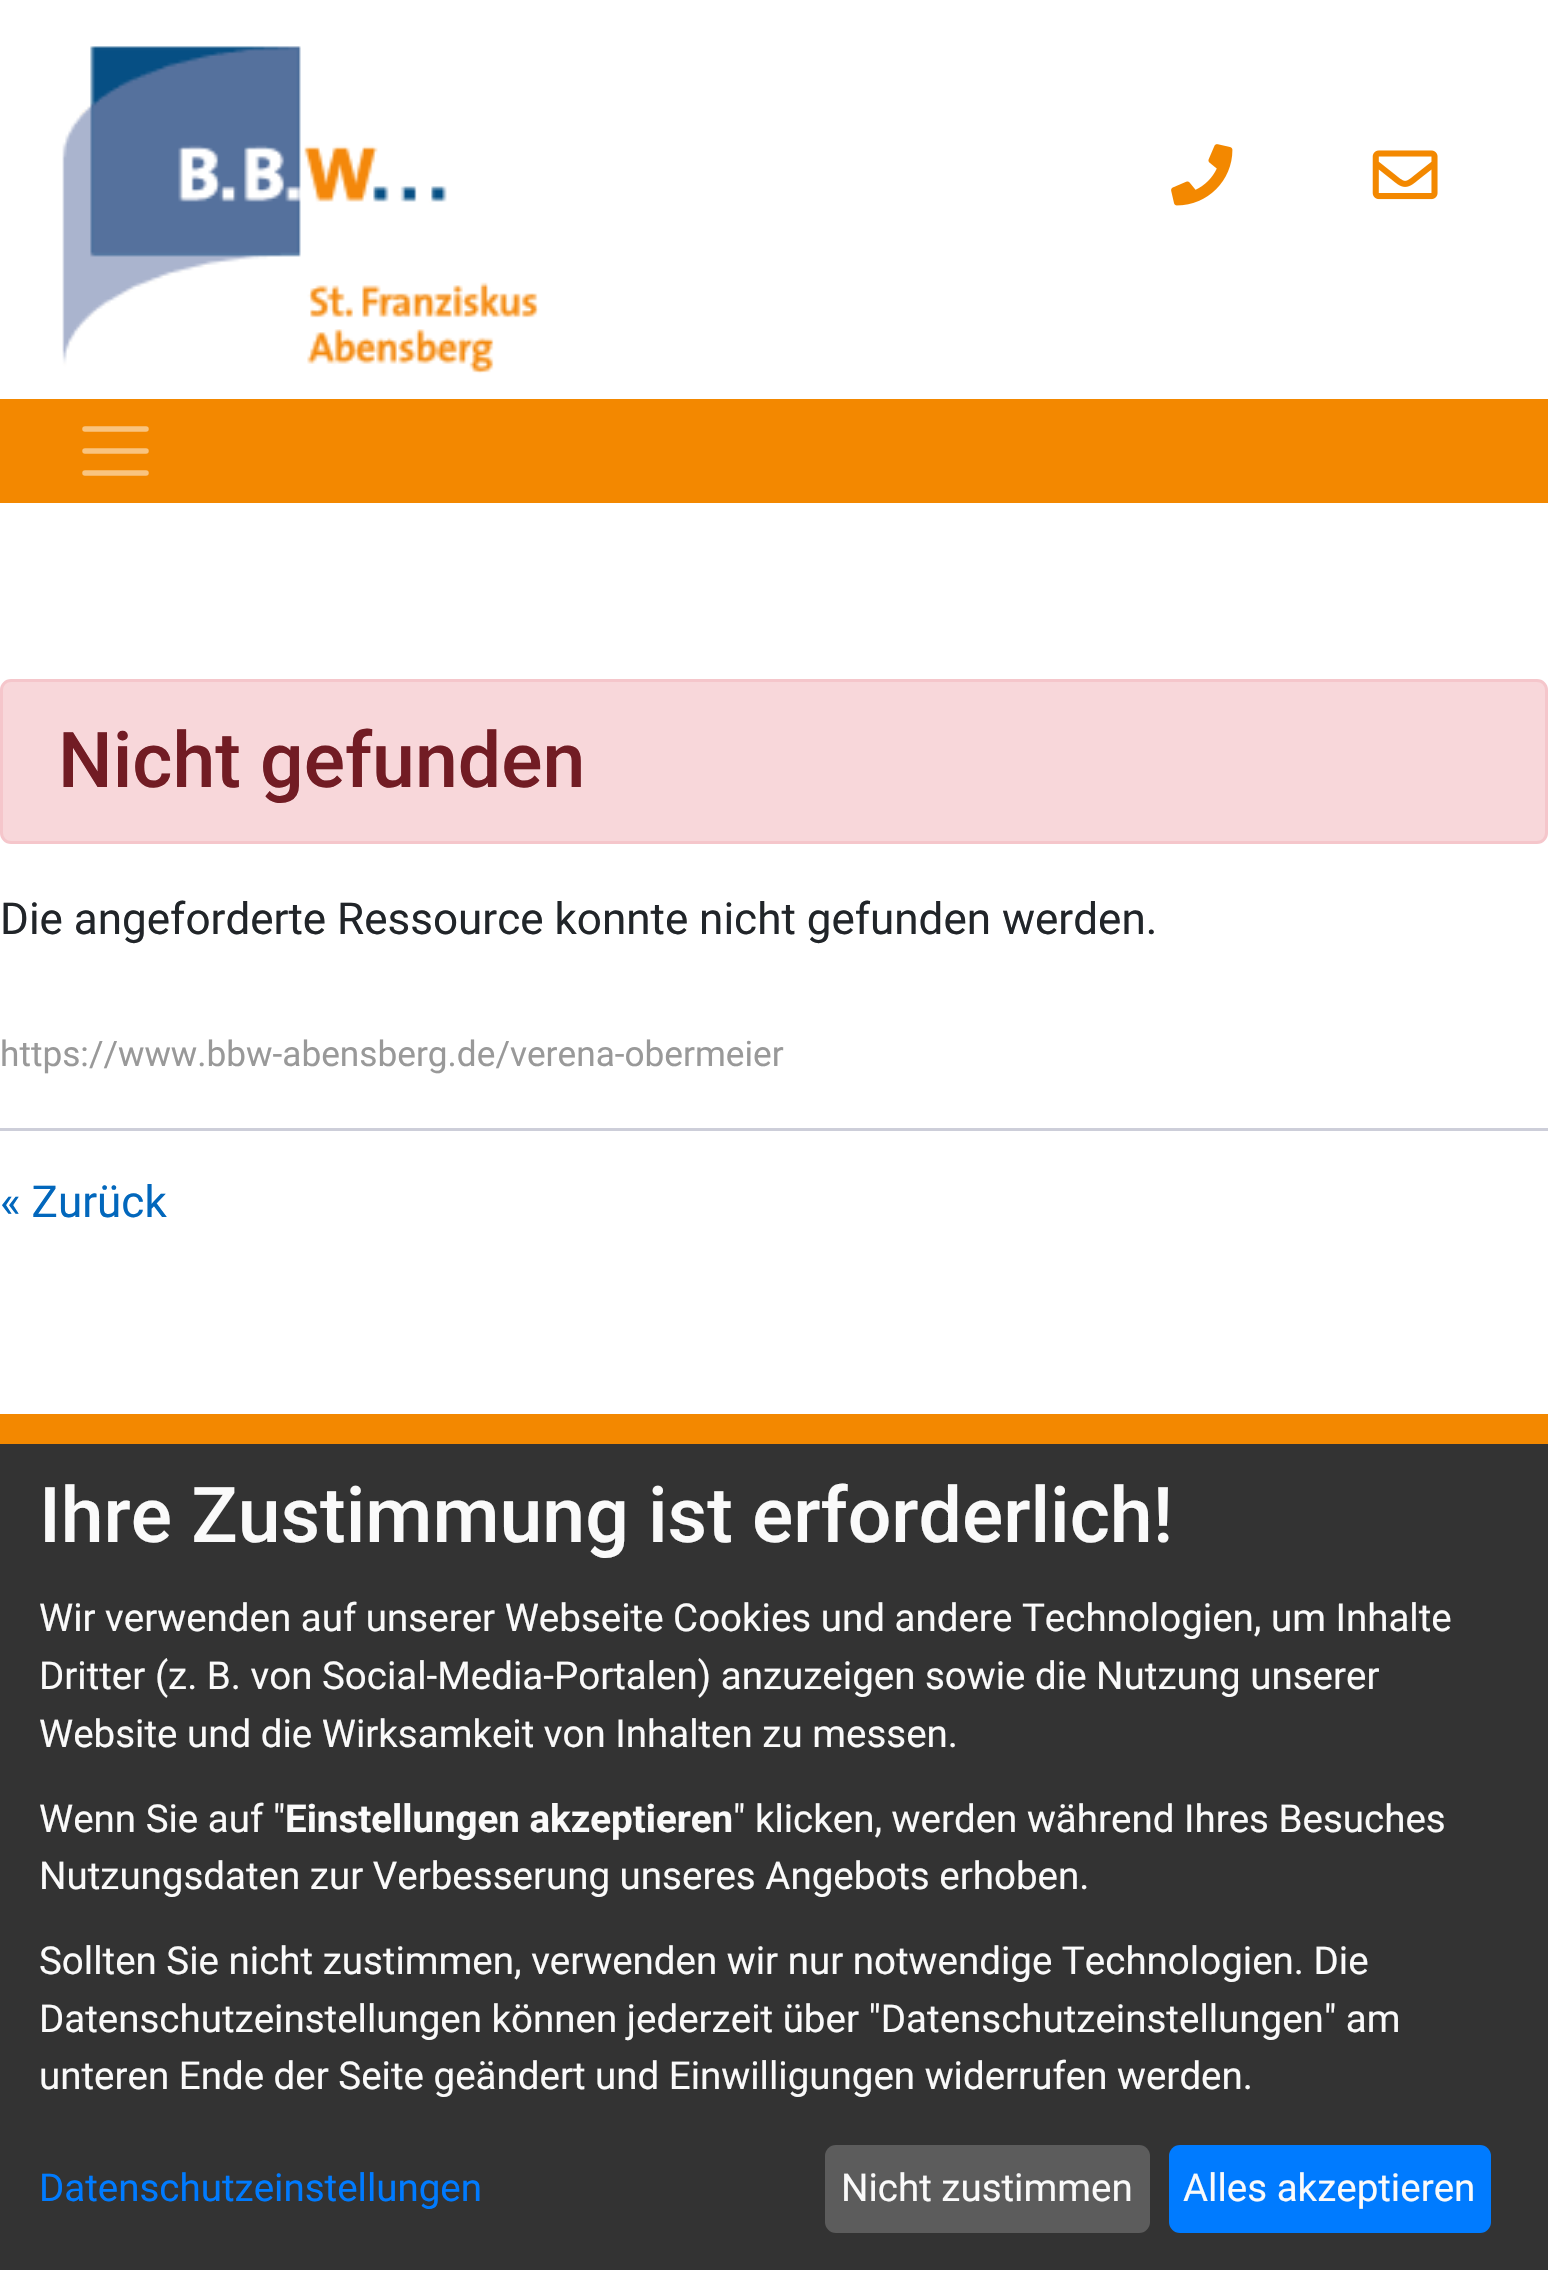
void draw(SkCanvas* canvas) {
	SkPaint paint;
	paint.setAntiAlias(true);
	auto svgPath = [&](const char* data, bool evenOdd = false) {
		SkPath result = *SkParsePath::FromSVGString(data);
		if (evenOdd) result.setFillType(SkPathFillType::kEvenOdd);
		return result;
	};
	canvas->clear(0xffffffff);
	canvas->drawImageRect(SkImages::DeferredFromEncodedData(SkData::MakeFromFileName("img1.png")), SkRect::MakeXYWH(62, 46, 478, 328), SkSamplingOptions());
	canvas->drawImageRect(SkImages::DeferredFromEncodedData(SkData::MakeFromFileName("img2.png")), SkRect::MakeXYWH(1171, 144, 62, 62), SkSamplingOptions());
	canvas->drawImageRect(SkImages::DeferredFromEncodedData(SkData::MakeFromFileName("img3.png")), SkRect::MakeXYWH(1372, 150, 66, 50), SkSamplingOptions());
	paint.setColor(0xfff38800);
	canvas->drawRect(SkRect::MakeXYWH(0, 399, 1548, 104), paint);
	paint.setStroke(true);
	paint.setStrokeWidth(5.5);
	paint.setStrokeCap(SkPaint::kRound_Cap);
	paint.setColor(0xfff9c480);
	canvas->drawPath(svgPath("M85 429H146M85 451H146M85 473H146"), paint);
	paint.setStroke(false);
	paint.setColor(0xfff8d7da);
	canvas->drawRoundRect(SkRect::MakeXYWH(1.5, 680.5, 1545, 162), 9.5, 9.5, paint);
	paint.setStroke(true);
	paint.setStrokeWidth(3);
	paint.setStrokeCap(SkPaint::kButt_Cap);
	paint.setColor(0xfff5c6cb);
	canvas->drawRoundRect(SkRect::MakeXYWH(1.5, 680.5, 1545, 162), 9.5, 9.5, paint);
	SkFont f1(fontMgr->matchFamilyStyle("Roboto", SkFontStyle(500, SkFontStyle::kNormal_Width, SkFontStyle::kUpright_Slant)), 77);
	f1.setSubpixel(true);
	paint.setStroke(false);
	paint.setColor(0xff721c24);
	canvas->drawString("Nicht gefunden", 58, 787, f1, paint);
	SkFont f2(fontMgr->matchFamilyStyle("Roboto", SkFontStyle::Normal()), 44);
	f2.setSubpixel(true);
	paint.setColor(0xff212529);
	canvas->drawString("Die angeforderte Ressource konnte nicht gefunden werden.", 0, 934, f2, paint);
	SkFont f3(fontMgr->matchFamilyStyle("Roboto", SkFontStyle::Normal()), 35.2);
	f3.setSubpixel(true);
	paint.setColor(0xff999999);
	canvas->drawString("https://www.bbw-abensberg.de/verena-obermeier", 0, 1066, f3, paint);
	paint.setColor(0xffcdced9);
	canvas->drawRect(SkRect::MakeXYWH(0, 1128, 1548, 3), paint);
	paint.setColor(0xff0267bc);
	canvas->drawString("« Zurück", 0, 1217, f2, paint);
	paint.setColor(0xfff38800);
	canvas->drawRect(SkRect::MakeXYWH(0, 1414, 1548, 30), paint);
	paint.setColor(0xff333333);
	canvas->drawRect(SkRect::MakeXYWH(0, 1444, 1548, 826), paint);
	paint.setColor(0xfffafafa);
	canvas->drawString("Ihre Zustimmung ist erforderlich!", 39, 1542, f1, paint);
	SkFont f4(fontMgr->matchFamilyStyle("Roboto", SkFontStyle::Normal()), 38.5);
	f4.setSubpixel(true);
	canvas->drawString("Wir verwenden auf unserer Webseite Cookies und andere Technologien, um Inhalte", 39, 1631, f4, paint);
	canvas->drawString("Dritter (z. B. von Social-Media-Portalen) anzuzeigen sowie die Nutzung unserer", 39, 1689, f4, paint);
	canvas->drawString("Website und die Wirksamkeit von Inhalten zu messen.", 39, 1747, f4, paint);
	canvas->drawString("Wenn Sie auf \"", 39, 1832, f4, paint);
	SkFont f5(fontMgr->matchFamilyStyle("Roboto", SkFontStyle::Bold()), 38.5);
	f5.setSubpixel(true);
	canvas->drawString("Einstellungen akzeptieren", 285, 1832, f5, paint);
	canvas->drawString("\" klicken, werden während Ihres Besuches", 733, 1832, f4, paint);
	canvas->drawString("Nutzungsdaten zur Verbesserung unseres Angebots erhoben.", 39, 1889, f4, paint);
	canvas->drawString("Sollten Sie nicht zustimmen, verwenden wir nur notwendige Technologien. Die", 39, 1974, f4, paint);
	canvas->drawString("Datenschutzeinstellungen können jederzeit über \"Datenschutzeinstellungen\" am", 39, 2032, f4, paint);
	canvas->drawString("unteren Ende der Seite geändert und Einwilligungen widerrufen werden.", 39, 2089, f4, paint);
	paint.setColor(0xff007bff);
	canvas->drawString("Datenschutzeinstellungen", 39, 2201, f4, paint);
	paint.setColor(0xff5c5c5c);
	canvas->drawRoundRect(SkRect::MakeXYWH(825, 2145, 325, 88), 11, 11, paint);
	paint.setColor(0xfffafafa);
	canvas->drawString("Nicht zustimmen", 841, 2201, f4, paint);
	paint.setColor(0xff007bff);
	canvas->drawRoundRect(SkRect::MakeXYWH(1169, 2145, 322, 88), 11, 11, paint);
	paint.setColor(0xfffafafa);
	canvas->drawString("Alles akzeptieren", 1183, 2201, f4, paint);
}
